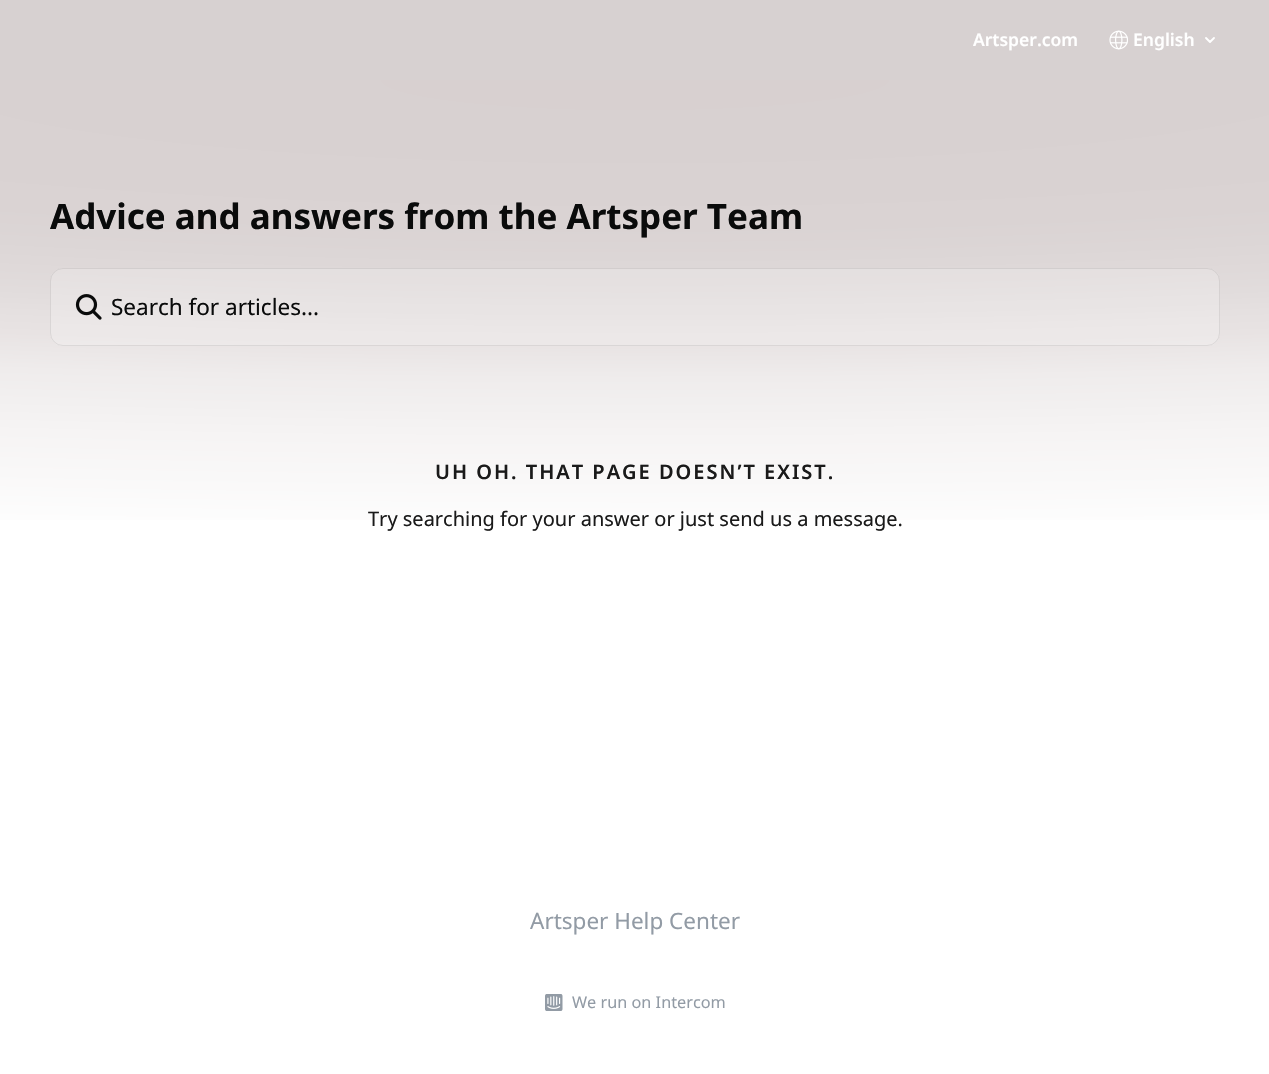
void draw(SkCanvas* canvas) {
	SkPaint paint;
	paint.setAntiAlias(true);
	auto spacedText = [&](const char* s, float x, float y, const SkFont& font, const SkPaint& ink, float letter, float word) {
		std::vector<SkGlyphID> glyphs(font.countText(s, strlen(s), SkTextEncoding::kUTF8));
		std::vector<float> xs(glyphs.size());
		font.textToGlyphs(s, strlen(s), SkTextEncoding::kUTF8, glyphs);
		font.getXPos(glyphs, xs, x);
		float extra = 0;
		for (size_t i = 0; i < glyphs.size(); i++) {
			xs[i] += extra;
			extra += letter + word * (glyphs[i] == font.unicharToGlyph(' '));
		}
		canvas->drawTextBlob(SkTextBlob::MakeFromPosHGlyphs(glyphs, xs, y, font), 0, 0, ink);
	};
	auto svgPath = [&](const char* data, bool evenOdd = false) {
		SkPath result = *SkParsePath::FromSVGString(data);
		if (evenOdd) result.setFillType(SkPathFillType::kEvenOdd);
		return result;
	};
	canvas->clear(0xffffffff);
	paint.setColor(0xffd7d1d1);
	canvas->drawRect(SkRect::MakeXYWH(0, 0, 1269, 80), paint);
	SkFont f1(fontMgr->matchFamilyStyle("Noto Sans", SkFontStyle(600, SkFontStyle::kNormal_Width, SkFontStyle::kUpright_Slant)), 17.5);
	f1.setSubpixel(true);
	paint.setColor(0xffffffff);
	canvas->drawString("Artsper.com", 973, 46, f1, paint);
	canvas->drawImageRect(SkImages::DeferredFromEncodedData(SkData::MakeFromFileName("img1.png")), SkRect::MakeXYWH(1109, 30, 19, 20), SkSamplingOptions());
	canvas->drawString("English", 1133, 46, f1, paint);
	paint.setStroke(true);
	paint.setStrokeWidth(1.9);
	paint.setStrokeCap(SkPaint::kRound_Cap);
	paint.setStrokeJoin(SkPaint::kRound_Join);
	canvas->drawPath(svgPath("M1206 38L1210 42L1214 38"), paint);
	paint.setStroke(false);
	{
		const SkColor colors[] = {0xffd8d0d0, 0xffd8d1d1, 0xffd9d2d2, 0xffdad3d3, 0xffdcd6d6, 0xffdfd9d9, 0xffe1dcdc, 0xffe5e0e0, 0xffe8e3e3, 0xffebe7e7, 0xffefecec, 0xfff2f0f0, 0xfff6f4f4, 0xfff9f8f8, 0xfffdfdfd, 0xffffffff};
		const float stops[] = {0, 0.12, 0.21, 0.29, 0.35, 0.4, 0.44, 0.48, 0.52, 0.55, 0.59, 0.65, 0.71, 0.79, 0.88, 1};
		SkMatrix m = SkMatrix::Translate(635, 80).preScale(4234, 506);
		paint.setShader(SkGradientShader::MakeRadial({0, 0}, 1, colors, stops, 16, SkTileMode::kClamp, 0, &m));
		paint.setAlpha(255);
	}
	canvas->drawRect(SkRect::MakeXYWH(0, 80, 1269, 440), paint);
	SkFont f2(fontMgr->matchFamilyStyle("Noto Sans", SkFontStyle::Bold()), 35);
	f2.setSubpixel(true);
	paint.setShader(nullptr);
	paint.setColor(0xff0a0b0b);
	canvas->drawString("Advice and answers from the Artsper Team", 50, 229, f2, paint);
	paint.setColor(0x33ffffff);
	canvas->drawRoundRect(SkRect::MakeXYWH(50, 268, 1170, 78), 13, 13, paint);
	paint.setStroke(true);
	paint.setStrokeWidth(1);
	paint.setStrokeCap(SkPaint::kButt_Cap);
	paint.setStrokeJoin(SkPaint::kMiter_Join);
	paint.setColor(0x14000000);
	canvas->drawRoundRect(SkRect::MakeXYWH(50.5, 268.5, 1169, 77), 12.5, 12.5, paint);
	canvas->drawImageRect(SkImages::DeferredFromEncodedData(SkData::MakeFromFileName("img2.png")), SkRect::MakeXYWH(75, 294, 27, 26), SkSamplingOptions());
	SkFont f3(fontMgr->matchFamilyStyle("Noto Sans", SkFontStyle::Normal()), 22.5);
	f3.setSubpixel(true);
	paint.setStroke(false);
	paint.setColor(0xff0a0b0b);
	canvas->drawString("Search for articles...", 111, 315, f3, paint);
	SkFont f4(fontMgr->matchFamilyStyle("Noto Sans", SkFontStyle(600, SkFontStyle::kNormal_Width, SkFontStyle::kUpright_Slant)), 20);
	f4.setSubpixel(true);
	paint.setColor(0xff1a1a1a);
	spacedText("UH OH. THAT PAGE DOESN’T EXIST.", 435, 479, f4, paint, 2, 0);
	SkFont f5(fontMgr->matchFamilyStyle("Noto Sans", SkFontStyle::Normal()), 20);
	f5.setSubpixel(true);
	canvas->drawString("Try searching for your answer or just send us a message.", 368, 526, f5, paint);
	paint.setColor(0xff929ba5);
	canvas->drawString("Artsper Help Center", 530, 929, f3, paint);
	canvas->drawImageRect(SkImages::DeferredFromEncodedData(SkData::MakeFromFileName("img3.png")), SkRect::MakeXYWH(545, 994, 18, 17), SkSamplingOptions());
	SkFont f6(fontMgr->matchFamilyStyle("Noto Sans", SkFontStyle::Normal()), 16.25);
	f6.setSubpixel(true);
	canvas->drawString("We run on Intercom", 572, 1008, f6, paint);
}
